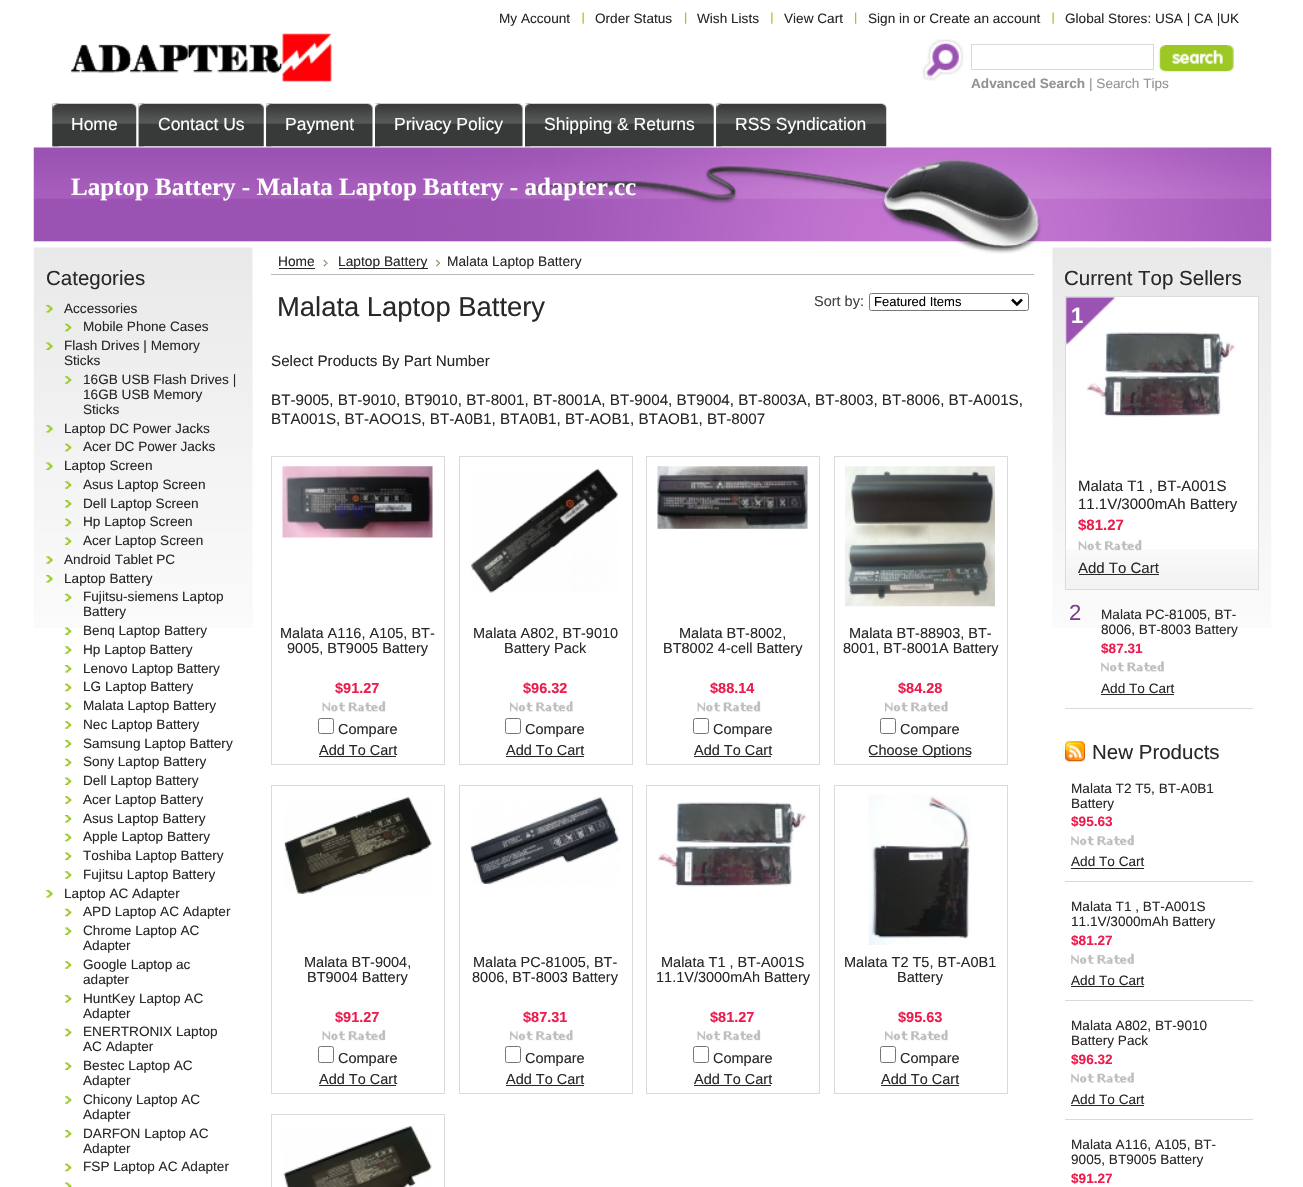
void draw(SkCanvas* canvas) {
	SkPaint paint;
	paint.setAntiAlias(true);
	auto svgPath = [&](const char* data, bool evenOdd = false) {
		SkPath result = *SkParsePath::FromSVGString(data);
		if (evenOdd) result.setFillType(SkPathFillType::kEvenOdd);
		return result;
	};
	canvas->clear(0xffffffff);
	SkFont f1(fontMgr->matchFamilyStyle("Liberation Sans", SkFontStyle::Normal()), 13.6);
	f1.setSubpixel(true);
	paint.setColor(0xff282828);
	canvas->drawString("My Account", 499, 23, f1, paint);
	canvas->drawImageRect(SkImages::DeferredFromEncodedData(SkData::MakeFromFileName("img1.png")), SkRect::MakeXYWH(582, 12, 2, 12), SkSamplingOptions());
	canvas->drawString("Order Status", 595, 23, f1, paint);
	canvas->drawImageRect(SkImages::DeferredFromEncodedData(SkData::MakeFromFileName("img2.png")), SkRect::MakeXYWH(685, 12, 2, 12), SkSamplingOptions());
	canvas->drawString("Wish Lists", 697, 23, f1, paint);
	canvas->drawImageRect(SkImages::DeferredFromEncodedData(SkData::MakeFromFileName("img3.png")), SkRect::MakeXYWH(771, 12, 2, 12), SkSamplingOptions());
	canvas->drawString("View Cart", 784, 23, f1, paint);
	canvas->drawImageRect(SkImages::DeferredFromEncodedData(SkData::MakeFromFileName("img2.png")), SkRect::MakeXYWH(855, 12, 2, 12), SkSamplingOptions());
	canvas->drawString("Sign in or Create an account", 868, 23, f1, paint);
	canvas->drawImageRect(SkImages::DeferredFromEncodedData(SkData::MakeFromFileName("img1.png")), SkRect::MakeXYWH(1052, 12, 2, 12), SkSamplingOptions());
	canvas->drawString("Global Stores: USA | CA |UK", 1065, 23, f1, paint);
	canvas->drawImageRect(SkImages::DeferredFromEncodedData(SkData::MakeFromFileName("img4.png")), SkRect::MakeXYWH(71, 33, 261, 49), SkSamplingOptions());
	canvas->drawImageRect(SkImages::DeferredFromEncodedData(SkData::MakeFromFileName("img5.png")), SkRect::MakeXYWH(922, 39, 42, 42), SkSamplingOptions());
	paint.setStroke(true);
	paint.setStrokeWidth(1);
	paint.setColor(0xffd9d9d9);
	canvas->drawRect(SkRect::MakeXYWH(971.5, 44.5, 182, 25), paint);
	canvas->drawImageRect(SkImages::DeferredFromEncodedData(SkData::MakeFromFileName("img6.png")), SkRect::MakeXYWH(1158, 45, 76, 27), SkSamplingOptions());
	SkFont f2(fontMgr->matchFamilyStyle("Liberation Sans", SkFontStyle::Bold()), 13.6);
	f2.setSubpixel(true);
	paint.setStroke(false);
	paint.setColor(0xff939393);
	canvas->drawString("Advanced Search", 971, 88, f2, paint);
	canvas->drawString("| Search Tips", 1089, 88, f1, paint);
	canvas->drawImageRect(SkImages::DeferredFromEncodedData(SkData::MakeFromFileName("img7.png")), SkRect::MakeXYWH(52, 103, 85, 44), SkSamplingOptions());
	canvas->drawImageRect(SkImages::DeferredFromEncodedData(SkData::MakeFromFileName("img8.png")), SkRect::MakeXYWH(52, 103, 7, 44), SkSamplingOptions());
	SkFont f3(fontMgr->matchFamilyStyle("Liberation Sans", SkFontStyle::Normal()), 17.5);
	f3.setSubpixel(true);
	paint.setColor(0xffffffff);
	canvas->drawString("Home", 71, 130, f3, paint);
	canvas->drawImageRect(SkImages::DeferredFromEncodedData(SkData::MakeFromFileName("img9.png")), SkRect::MakeXYWH(138, 103, 126, 44), SkSamplingOptions());
	canvas->drawImageRect(SkImages::DeferredFromEncodedData(SkData::MakeFromFileName("img10.png")), SkRect::MakeXYWH(138, 103, 6, 44), SkSamplingOptions());
	canvas->drawString("Contact Us", 158, 130, f3, paint);
	canvas->drawImageRect(SkImages::DeferredFromEncodedData(SkData::MakeFromFileName("img11.png")), SkRect::MakeXYWH(266, 103, 107, 44), SkSamplingOptions());
	canvas->drawImageRect(SkImages::DeferredFromEncodedData(SkData::MakeFromFileName("img12.png")), SkRect::MakeXYWH(266, 103, 6, 44), SkSamplingOptions());
	canvas->drawString("Payment", 285, 130, f3, paint);
	canvas->drawImageRect(SkImages::DeferredFromEncodedData(SkData::MakeFromFileName("img13.png")), SkRect::MakeXYWH(375, 103, 148, 44), SkSamplingOptions());
	canvas->drawImageRect(SkImages::DeferredFromEncodedData(SkData::MakeFromFileName("img14.png")), SkRect::MakeXYWH(375, 103, 5, 44), SkSamplingOptions());
	canvas->drawString("Privacy Policy", 394, 130, f3, paint);
	canvas->drawImageRect(SkImages::DeferredFromEncodedData(SkData::MakeFromFileName("img15.png")), SkRect::MakeXYWH(525, 103, 189, 44), SkSamplingOptions());
	canvas->drawImageRect(SkImages::DeferredFromEncodedData(SkData::MakeFromFileName("img16.png")), SkRect::MakeXYWH(525, 103, 5, 44), SkSamplingOptions());
	canvas->drawString("Shipping & Returns", 544, 130, f3, paint);
	canvas->drawImageRect(SkImages::DeferredFromEncodedData(SkData::MakeFromFileName("img17.png")), SkRect::MakeXYWH(716, 103, 171, 44), SkSamplingOptions());
	canvas->drawImageRect(SkImages::DeferredFromEncodedData(SkData::MakeFromFileName("img18.png")), SkRect::MakeXYWH(716, 103, 6, 44), SkSamplingOptions());
	canvas->drawString("RSS Syndication", 735, 130, f3, paint);
	canvas->drawImageRect(SkImages::DeferredFromEncodedData(SkData::MakeFromFileName("img19.png")), SkRect::MakeXYWH(33, 147, 1239, 107), SkSamplingOptions());
	SkFont f4(fontMgr->matchFamilyStyle("Liberation Serif", SkFontStyle::Bold()), 25);
	f4.setSubpixel(true);
	canvas->drawString("Laptop Battery - Malata Laptop Battery - adapter.cc", 71, 195, f4, paint);
	canvas->drawImageRect(SkImages::DeferredFromEncodedData(SkData::MakeFromFileName("img20.png")), SkRect::MakeXYWH(33, 247, 220, 381), SkSamplingOptions());
	SkFont f5(fontMgr->matchFamilyStyle("Liberation Sans", SkFontStyle::Normal()), 20.5);
	f5.setSubpixel(true);
	paint.setColor(0xff282828);
	canvas->drawString("Categories", 46, 285, f5, paint);
	canvas->drawImageRect(SkImages::DeferredFromEncodedData(SkData::MakeFromFileName("img21.png")), SkRect::MakeXYWH(46, 305, 7, 8), SkSamplingOptions());
	canvas->drawString("Accessories", 64, 313, f1, paint);
	canvas->drawImageRect(SkImages::DeferredFromEncodedData(SkData::MakeFromFileName("img22.png")), SkRect::MakeXYWH(65, 323, 7, 9), SkSamplingOptions());
	canvas->drawString("Mobile Phone Cases", 83, 331, f1, paint);
	canvas->drawImageRect(SkImages::DeferredFromEncodedData(SkData::MakeFromFileName("img23.png")), SkRect::MakeXYWH(46, 342, 7, 8), SkSamplingOptions());
	canvas->drawString("Flash Drives | Memory", 64, 350, f1, paint);
	canvas->drawString("Sticks", 64, 365, f1, paint);
	canvas->drawImageRect(SkImages::DeferredFromEncodedData(SkData::MakeFromFileName("img24.png")), SkRect::MakeXYWH(65, 376, 7, 8), SkSamplingOptions());
	canvas->drawString("16GB USB Flash Drives |", 83, 384, f1, paint);
	canvas->drawString("16GB USB Memory", 83, 399, f1, paint);
	canvas->drawString("Sticks", 83, 414, f1, paint);
	canvas->drawImageRect(SkImages::DeferredFromEncodedData(SkData::MakeFromFileName("img25.png")), SkRect::MakeXYWH(46, 425, 7, 8), SkSamplingOptions());
	canvas->drawString("Laptop DC Power Jacks", 64, 433, f1, paint);
	canvas->drawImageRect(SkImages::DeferredFromEncodedData(SkData::MakeFromFileName("img26.png")), SkRect::MakeXYWH(65, 443, 7, 9), SkSamplingOptions());
	canvas->drawString("Acer DC Power Jacks", 83, 451, f1, paint);
	canvas->drawImageRect(SkImages::DeferredFromEncodedData(SkData::MakeFromFileName("img27.png")), SkRect::MakeXYWH(46, 462, 7, 8), SkSamplingOptions());
	canvas->drawString("Laptop Screen", 64, 470, f1, paint);
	canvas->drawImageRect(SkImages::DeferredFromEncodedData(SkData::MakeFromFileName("img28.png")), SkRect::MakeXYWH(65, 481, 7, 8), SkSamplingOptions());
	canvas->drawString("Asus Laptop Screen", 83, 489, f1, paint);
	canvas->drawImageRect(SkImages::DeferredFromEncodedData(SkData::MakeFromFileName("img29.png")), SkRect::MakeXYWH(65, 500, 7, 8), SkSamplingOptions());
	canvas->drawString("Dell Laptop Screen", 83, 508, f1, paint);
	canvas->drawImageRect(SkImages::DeferredFromEncodedData(SkData::MakeFromFileName("img30.png")), SkRect::MakeXYWH(65, 518, 7, 9), SkSamplingOptions());
	canvas->drawString("Hp Laptop Screen", 83, 526, f1, paint);
	canvas->drawImageRect(SkImages::DeferredFromEncodedData(SkData::MakeFromFileName("img31.png")), SkRect::MakeXYWH(65, 537, 7, 8), SkSamplingOptions());
	canvas->drawString("Acer Laptop Screen", 83, 545, f1, paint);
	canvas->drawImageRect(SkImages::DeferredFromEncodedData(SkData::MakeFromFileName("img32.png")), SkRect::MakeXYWH(46, 556, 7, 8), SkSamplingOptions());
	canvas->drawString("Android Tablet PC", 64, 564, f1, paint);
	canvas->drawImageRect(SkImages::DeferredFromEncodedData(SkData::MakeFromFileName("img33.png")), SkRect::MakeXYWH(46, 575, 7, 8), SkSamplingOptions());
	canvas->drawString("Laptop Battery", 64, 583, f1, paint);
	canvas->drawImageRect(SkImages::DeferredFromEncodedData(SkData::MakeFromFileName("img34.png")), SkRect::MakeXYWH(65, 593, 7, 9), SkSamplingOptions());
	canvas->drawString("Fujitsu-siemens Laptop", 83, 601, f1, paint);
	canvas->drawString("Battery", 83, 616, f1, paint);
	canvas->drawImageRect(SkImages::DeferredFromEncodedData(SkData::MakeFromFileName("img35.png")), SkRect::MakeXYWH(65, 627, 7, 8), SkSamplingOptions());
	canvas->drawString("Benq Laptop Battery", 83, 635, f1, paint);
	canvas->drawImageRect(SkImages::DeferredFromEncodedData(SkData::MakeFromFileName("img36.png")), SkRect::MakeXYWH(65, 646, 7, 8), SkSamplingOptions());
	canvas->drawString("Hp Laptop Battery", 83, 654, f1, paint);
	canvas->drawImageRect(SkImages::DeferredFromEncodedData(SkData::MakeFromFileName("img37.png")), SkRect::MakeXYWH(65, 665, 7, 8), SkSamplingOptions());
	canvas->drawString("Lenovo Laptop Battery", 83, 673, f1, paint);
	canvas->drawImageRect(SkImages::DeferredFromEncodedData(SkData::MakeFromFileName("img38.png")), SkRect::MakeXYWH(65, 683, 7, 9), SkSamplingOptions());
	canvas->drawString("LG Laptop Battery", 83, 691, f1, paint);
	canvas->drawImageRect(SkImages::DeferredFromEncodedData(SkData::MakeFromFileName("img39.png")), SkRect::MakeXYWH(65, 702, 7, 8), SkSamplingOptions());
	canvas->drawString("Malata Laptop Battery", 83, 710, f1, paint);
	canvas->drawImageRect(SkImages::DeferredFromEncodedData(SkData::MakeFromFileName("img36.png")), SkRect::MakeXYWH(65, 721, 7, 8), SkSamplingOptions());
	canvas->drawString("Nec Laptop Battery", 83, 729, f1, paint);
	canvas->drawImageRect(SkImages::DeferredFromEncodedData(SkData::MakeFromFileName("img37.png")), SkRect::MakeXYWH(65, 740, 7, 8), SkSamplingOptions());
	canvas->drawString("Samsung Laptop Battery", 83, 748, f1, paint);
	canvas->drawImageRect(SkImages::DeferredFromEncodedData(SkData::MakeFromFileName("img38.png")), SkRect::MakeXYWH(65, 758, 7, 9), SkSamplingOptions());
	canvas->drawString("Sony Laptop Battery", 83, 766, f1, paint);
	canvas->drawImageRect(SkImages::DeferredFromEncodedData(SkData::MakeFromFileName("img40.png")), SkRect::MakeXYWH(65, 777, 7, 8), SkSamplingOptions());
	canvas->drawString("Dell Laptop Battery", 83, 785, f1, paint);
	canvas->drawImageRect(SkImages::DeferredFromEncodedData(SkData::MakeFromFileName("img36.png")), SkRect::MakeXYWH(65, 796, 7, 8), SkSamplingOptions());
	canvas->drawString("Acer Laptop Battery", 83, 804, f1, paint);
	canvas->drawImageRect(SkImages::DeferredFromEncodedData(SkData::MakeFromFileName("img37.png")), SkRect::MakeXYWH(65, 815, 7, 8), SkSamplingOptions());
	canvas->drawString("Asus Laptop Battery", 83, 823, f1, paint);
	canvas->drawImageRect(SkImages::DeferredFromEncodedData(SkData::MakeFromFileName("img38.png")), SkRect::MakeXYWH(65, 833, 7, 9), SkSamplingOptions());
	canvas->drawString("Apple Laptop Battery", 83, 841, f1, paint);
	canvas->drawImageRect(SkImages::DeferredFromEncodedData(SkData::MakeFromFileName("img39.png")), SkRect::MakeXYWH(65, 852, 7, 8), SkSamplingOptions());
	canvas->drawString("Toshiba Laptop Battery", 83, 860, f1, paint);
	canvas->drawImageRect(SkImages::DeferredFromEncodedData(SkData::MakeFromFileName("img36.png")), SkRect::MakeXYWH(65, 871, 7, 8), SkSamplingOptions());
	canvas->drawString("Fujitsu Laptop Battery", 83, 879, f1, paint);
	canvas->drawImageRect(SkImages::DeferredFromEncodedData(SkData::MakeFromFileName("img41.png")), SkRect::MakeXYWH(46, 890, 7, 8), SkSamplingOptions());
	canvas->drawString("Laptop AC Adapter", 64, 898, f1, paint);
	canvas->drawImageRect(SkImages::DeferredFromEncodedData(SkData::MakeFromFileName("img38.png")), SkRect::MakeXYWH(65, 908, 7, 9), SkSamplingOptions());
	canvas->drawString("APD Laptop AC Adapter", 83, 916, f1, paint);
	canvas->drawImageRect(SkImages::DeferredFromEncodedData(SkData::MakeFromFileName("img39.png")), SkRect::MakeXYWH(65, 927, 7, 8), SkSamplingOptions());
	canvas->drawString("Chrome Laptop AC", 83, 935, f1, paint);
	canvas->drawString("Adapter", 83, 950, f1, paint);
	canvas->drawImageRect(SkImages::DeferredFromEncodedData(SkData::MakeFromFileName("img36.png")), SkRect::MakeXYWH(65, 961, 7, 8), SkSamplingOptions());
	canvas->drawString("Google Laptop ac", 83, 969, f1, paint);
	canvas->drawString("adapter", 83, 984, f1, paint);
	canvas->drawImageRect(SkImages::DeferredFromEncodedData(SkData::MakeFromFileName("img37.png")), SkRect::MakeXYWH(65, 995, 7, 8), SkSamplingOptions());
	canvas->drawString("HuntKey Laptop AC", 83, 1003, f1, paint);
	canvas->drawString("Adapter", 83, 1018, f1, paint);
	canvas->drawImageRect(SkImages::DeferredFromEncodedData(SkData::MakeFromFileName("img38.png")), SkRect::MakeXYWH(65, 1028, 7, 9), SkSamplingOptions());
	canvas->drawString("ENERTRONIX Laptop", 83, 1036, f1, paint);
	canvas->drawString("AC Adapter", 83, 1051, f1, paint);
	canvas->drawImageRect(SkImages::DeferredFromEncodedData(SkData::MakeFromFileName("img39.png")), SkRect::MakeXYWH(65, 1062, 7, 8), SkSamplingOptions());
	canvas->drawString("Bestec Laptop AC", 83, 1070, f1, paint);
	canvas->drawString("Adapter", 83, 1085, f1, paint);
	canvas->drawImageRect(SkImages::DeferredFromEncodedData(SkData::MakeFromFileName("img36.png")), SkRect::MakeXYWH(65, 1096, 7, 8), SkSamplingOptions());
	canvas->drawString("Chicony Laptop AC", 83, 1104, f1, paint);
	canvas->drawString("Adapter", 83, 1119, f1, paint);
	canvas->drawImageRect(SkImages::DeferredFromEncodedData(SkData::MakeFromFileName("img37.png")), SkRect::MakeXYWH(65, 1130, 7, 8), SkSamplingOptions());
	canvas->drawString("DARFON Laptop AC", 83, 1138, f1, paint);
	canvas->drawString("Adapter", 83, 1153, f1, paint);
	canvas->drawImageRect(SkImages::DeferredFromEncodedData(SkData::MakeFromFileName("img38.png")), SkRect::MakeXYWH(65, 1163, 7, 9), SkSamplingOptions());
	canvas->drawString("FSP Laptop AC Adapter", 83, 1171, f1, paint);
	canvas->drawImageRect(SkImages::DeferredFromEncodedData(SkData::MakeFromFileName("img42.png")), SkRect::MakeXYWH(65, 1182, 7, 5), SkSamplingOptions());
	paint.setColor(0xffb7b7b7);
	canvas->drawRect(SkRect::MakeXYWH(271, 274, 763, 1), paint);
	SkFont f6(fontMgr->matchFamilyStyle("Liberation Sans", SkFontStyle::Normal()), 13.75);
	f6.setSubpixel(true);
	paint.setColor(0xff282828);
	canvas->drawString("Home", 278, 266, f6, paint);
	canvas->drawRect(SkRect::MakeXYWH(279, 268, 36, 1), paint);
	canvas->drawImageRect(SkImages::DeferredFromEncodedData(SkData::MakeFromFileName("img43.png")), SkRect::MakeXYWH(323, 259, 5, 8), SkSamplingOptions());
	canvas->drawRect(SkRect::MakeXYWH(339, 268, 89, 1), paint);
	canvas->drawString("Laptop Battery", 338, 266, f6, paint);
	canvas->drawImageRect(SkImages::DeferredFromEncodedData(SkData::MakeFromFileName("img44.png")), SkRect::MakeXYWH(436, 259, 4, 8), SkSamplingOptions());
	canvas->drawString("Malata Laptop Battery", 447, 266, f6, paint);
	SkFont f7(fontMgr->matchFamilyStyle("Liberation Sans", SkFontStyle::Normal()), 27.4);
	f7.setSubpixel(true);
	canvas->drawString("Malata Laptop Battery", 277, 316, f7, paint);
	SkFont f8(fontMgr->matchFamilyStyle("Liberation Sans", SkFontStyle::Normal()), 14.5);
	f8.setSubpixel(true);
	paint.setColor(0xff444444);
	canvas->drawString("Sort by:", 814, 306, f8, paint);
	paint.setStroke(true);
	paint.setColor(0xff767676);
	canvas->drawRoundRect(SkRect::MakeXYWH(869.5, 293.5, 159, 17), 2, 2, paint);
	paint.setStrokeWidth(2.5);
	paint.setColor(0xff000000);
	canvas->drawPath(svgPath("M1012 299.5L1017 304.5L1022 299.5"), paint);
	SkFont f9(fontMgr->matchFamilyStyle("Liberation Sans", SkFontStyle::Normal()), 13);
	f9.setSubpixel(true);
	paint.setStroke(false);
	canvas->drawString("Featured Items", 874, 306, f9, paint);
	SkFont f10(fontMgr->matchFamilyStyle("Liberation Sans", SkFontStyle::Normal()), 15.2);
	f10.setSubpixel(true);
	paint.setColor(0xff282828);
	canvas->drawString("Select Products By Part Number", 271, 366, f10, paint);
	canvas->drawString("BT-9005, BT-9010, BT9010, BT-8001, BT-8001A, BT-9004, BT9004, BT-8003A, BT-8003, BT-8006, BT-A001S,", 271, 405, f10, paint);
	canvas->drawString("BTA001S, BT-AOO1S, BT-A0B1, BTA0B1, BT-AOB1, BTAOB1, BT-8007", 271, 424, f10, paint);
	paint.setStroke(true);
	paint.setStrokeWidth(1);
	paint.setColor(0xffdadada);
	canvas->drawRect(SkRect::MakeXYWH(271.5, 456.5, 173, 308), paint);
	canvas->drawImageRect(SkImages::DeferredFromEncodedData(SkData::MakeFromFileName("img45.png")), SkRect::MakeXYWH(282, 466, 151, 72), SkSamplingOptions());
	paint.setStroke(false);
	paint.setColor(0xff282828);
	canvas->drawString("Malata A116, A105, BT-", 280, 638, f8, paint);
	canvas->drawString("9005, BT9005 Battery", 287, 653, f8, paint);
	SkFont f11(fontMgr->matchFamilyStyle("Liberation Sans", SkFontStyle::Bold()), 14.5);
	f11.setSubpixel(true);
	paint.setColor(0xffec1c4d);
	canvas->drawString("$91.27", 335, 693, f11, paint);
	canvas->drawImageRect(SkImages::DeferredFromEncodedData(SkData::MakeFromFileName("img46.png")), SkRect::MakeXYWH(322, 701, 64, 11), SkSamplingOptions());
	paint.setStroke(true);
	paint.setColor(0xff767676);
	canvas->drawRoundRect(SkRect::MakeXYWH(318.5, 718.5, 15, 15), 2, 2, paint);
	paint.setStroke(false);
	paint.setColor(0xff282828);
	canvas->drawString("Compare", 338, 734, f8, paint);
	canvas->drawString("Add To Cart", 319, 755, f8, paint);
	canvas->drawRect(SkRect::MakeXYWH(319, 756, 77, 1), paint);
	paint.setStroke(true);
	paint.setColor(0xffdadada);
	canvas->drawRect(SkRect::MakeXYWH(459.5, 456.5, 173, 308), paint);
	canvas->drawImageRect(SkImages::DeferredFromEncodedData(SkData::MakeFromFileName("img47.png")), SkRect::MakeXYWH(470, 468, 149, 125), SkSamplingOptions());
	paint.setStroke(false);
	paint.setColor(0xff282828);
	canvas->drawString("Malata A802, BT-9010", 473, 638, f8, paint);
	canvas->drawString("Battery Pack", 504, 653, f8, paint);
	paint.setColor(0xffec1c4d);
	canvas->drawString("$96.32", 523, 693, f11, paint);
	canvas->drawImageRect(SkImages::DeferredFromEncodedData(SkData::MakeFromFileName("img48.png")), SkRect::MakeXYWH(510, 701, 63, 11), SkSamplingOptions());
	paint.setStroke(true);
	paint.setColor(0xff767676);
	canvas->drawRoundRect(SkRect::MakeXYWH(505.5, 718.5, 15, 15), 2, 2, paint);
	paint.setStroke(false);
	paint.setColor(0xff282828);
	canvas->drawString("Compare", 525, 734, f8, paint);
	canvas->drawString("Add To Cart", 506, 755, f8, paint);
	canvas->drawRect(SkRect::MakeXYWH(506, 756, 78, 1), paint);
	paint.setStroke(true);
	paint.setColor(0xffdadada);
	canvas->drawRect(SkRect::MakeXYWH(646.5, 456.5, 173, 308), paint);
	canvas->drawImageRect(SkImages::DeferredFromEncodedData(SkData::MakeFromFileName("img49.png")), SkRect::MakeXYWH(657, 466, 151, 63), SkSamplingOptions());
	paint.setStroke(false);
	paint.setColor(0xff282828);
	canvas->drawString("Malata BT-8002,", 679, 638, f8, paint);
	canvas->drawString("BT8002 4-cell Battery", 663, 653, f8, paint);
	paint.setColor(0xffec1c4d);
	canvas->drawString("$88.14", 710, 693, f11, paint);
	canvas->drawImageRect(SkImages::DeferredFromEncodedData(SkData::MakeFromFileName("img46.png")), SkRect::MakeXYWH(697, 701, 64, 11), SkSamplingOptions());
	paint.setStroke(true);
	paint.setColor(0xff767676);
	canvas->drawRoundRect(SkRect::MakeXYWH(693.5, 718.5, 15, 15), 2, 2, paint);
	paint.setStroke(false);
	paint.setColor(0xff282828);
	canvas->drawString("Compare", 713, 734, f8, paint);
	canvas->drawString("Add To Cart", 694, 755, f8, paint);
	canvas->drawRect(SkRect::MakeXYWH(694, 756, 77, 1), paint);
	paint.setStroke(true);
	paint.setColor(0xffdadada);
	canvas->drawRect(SkRect::MakeXYWH(834.5, 456.5, 173, 308), paint);
	canvas->drawImageRect(SkImages::DeferredFromEncodedData(SkData::MakeFromFileName("img50.png")), SkRect::MakeXYWH(845, 466, 150, 141), SkSamplingOptions());
	paint.setStroke(false);
	paint.setColor(0xff282828);
	canvas->drawString("Malata BT-88903, BT-", 849, 638, f8, paint);
	canvas->drawString("8001, BT-8001A Battery", 843, 653, f8, paint);
	paint.setColor(0xffec1c4d);
	canvas->drawString("$84.28", 898, 693, f11, paint);
	canvas->drawImageRect(SkImages::DeferredFromEncodedData(SkData::MakeFromFileName("img48.png")), SkRect::MakeXYWH(885, 701, 63, 11), SkSamplingOptions());
	paint.setStroke(true);
	paint.setColor(0xff767676);
	canvas->drawRoundRect(SkRect::MakeXYWH(880.5, 718.5, 15, 15), 2, 2, paint);
	paint.setStroke(false);
	paint.setColor(0xff282828);
	canvas->drawString("Compare", 900, 734, f8, paint);
	canvas->drawRect(SkRect::MakeXYWH(869, 756, 102, 1), paint);
	canvas->drawString("Choose Options", 868, 755, f8, paint);
	paint.setStroke(true);
	paint.setColor(0xffdadada);
	canvas->drawRect(SkRect::MakeXYWH(271.5, 785.5, 173, 308), paint);
	canvas->drawImageRect(SkImages::DeferredFromEncodedData(SkData::MakeFromFileName("img51.png")), SkRect::MakeXYWH(284, 797, 148, 97), SkSamplingOptions());
	paint.setStroke(false);
	paint.setColor(0xff282828);
	canvas->drawString("Malata BT-9004,", 304, 967, f8, paint);
	canvas->drawString("BT9004 Battery", 307, 982, f8, paint);
	paint.setColor(0xffec1c4d);
	canvas->drawString("$91.27", 335, 1022, f11, paint);
	canvas->drawImageRect(SkImages::DeferredFromEncodedData(SkData::MakeFromFileName("img52.png")), SkRect::MakeXYWH(322, 1030, 64, 11), SkSamplingOptions());
	paint.setStroke(true);
	paint.setColor(0xff767676);
	canvas->drawRoundRect(SkRect::MakeXYWH(318.5, 1046.5, 15, 16), 2, 2, paint);
	paint.setStroke(false);
	paint.setColor(0xff282828);
	canvas->drawString("Compare", 338, 1063, f8, paint);
	canvas->drawString("Add To Cart", 319, 1084, f8, paint);
	canvas->drawRect(SkRect::MakeXYWH(319, 1085, 77, 1), paint);
	paint.setStroke(true);
	paint.setColor(0xffdadada);
	canvas->drawRect(SkRect::MakeXYWH(459.5, 785.5, 173, 308), paint);
	canvas->drawImageRect(SkImages::DeferredFromEncodedData(SkData::MakeFromFileName("img53.png")), SkRect::MakeXYWH(470, 797, 150, 88), SkSamplingOptions());
	paint.setStroke(false);
	paint.setColor(0xff282828);
	canvas->drawString("Malata PC-81005, BT-", 473, 967, f8, paint);
	canvas->drawString("8006, BT-8003 Battery", 472, 982, f8, paint);
	paint.setColor(0xffec1c4d);
	canvas->drawString("$87.31", 523, 1022, f11, paint);
	canvas->drawImageRect(SkImages::DeferredFromEncodedData(SkData::MakeFromFileName("img54.png")), SkRect::MakeXYWH(510, 1030, 63, 11), SkSamplingOptions());
	paint.setStroke(true);
	paint.setColor(0xff767676);
	canvas->drawRoundRect(SkRect::MakeXYWH(505.5, 1046.5, 15, 16), 2, 2, paint);
	paint.setStroke(false);
	paint.setColor(0xff282828);
	canvas->drawString("Compare", 525, 1063, f8, paint);
	canvas->drawString("Add To Cart", 506, 1084, f8, paint);
	canvas->drawRect(SkRect::MakeXYWH(506, 1085, 78, 1), paint);
	paint.setStroke(true);
	paint.setColor(0xffdadada);
	canvas->drawRect(SkRect::MakeXYWH(646.5, 785.5, 173, 308), paint);
	canvas->drawImageRect(SkImages::DeferredFromEncodedData(SkData::MakeFromFileName("img55.png")), SkRect::MakeXYWH(657, 802, 150, 85), SkSamplingOptions());
	paint.setStroke(false);
	paint.setColor(0xff282828);
	canvas->drawString("Malata T1 , BT-A001S", 661, 967, f8, paint);
	canvas->drawString("11.1V/3000mAh Battery", 656, 982, f8, paint);
	paint.setColor(0xffec1c4d);
	canvas->drawString("$81.27", 710, 1022, f11, paint);
	canvas->drawImageRect(SkImages::DeferredFromEncodedData(SkData::MakeFromFileName("img52.png")), SkRect::MakeXYWH(697, 1030, 64, 11), SkSamplingOptions());
	paint.setStroke(true);
	paint.setColor(0xff767676);
	canvas->drawRoundRect(SkRect::MakeXYWH(693.5, 1046.5, 15, 16), 2, 2, paint);
	paint.setStroke(false);
	paint.setColor(0xff282828);
	canvas->drawString("Compare", 713, 1063, f8, paint);
	canvas->drawString("Add To Cart", 694, 1084, f8, paint);
	canvas->drawRect(SkRect::MakeXYWH(694, 1085, 77, 1), paint);
	paint.setStroke(true);
	paint.setColor(0xffdadada);
	canvas->drawRect(SkRect::MakeXYWH(834.5, 785.5, 173, 308), paint);
	canvas->drawImageRect(SkImages::DeferredFromEncodedData(SkData::MakeFromFileName("img56.png")), SkRect::MakeXYWH(868, 795, 103, 150), SkSamplingOptions());
	paint.setStroke(false);
	paint.setColor(0xff282828);
	canvas->drawString("Malata T2 T5, BT-A0B1", 844, 967, f8, paint);
	canvas->drawString("Battery", 897, 982, f8, paint);
	paint.setColor(0xffec1c4d);
	canvas->drawString("$95.63", 898, 1022, f11, paint);
	canvas->drawImageRect(SkImages::DeferredFromEncodedData(SkData::MakeFromFileName("img54.png")), SkRect::MakeXYWH(885, 1030, 63, 11), SkSamplingOptions());
	paint.setStroke(true);
	paint.setColor(0xff767676);
	canvas->drawRoundRect(SkRect::MakeXYWH(880.5, 1046.5, 15, 16), 2, 2, paint);
	paint.setStroke(false);
	paint.setColor(0xff282828);
	canvas->drawString("Compare", 900, 1063, f8, paint);
	canvas->drawString("Add To Cart", 881, 1084, f8, paint);
	canvas->drawRect(SkRect::MakeXYWH(881, 1085, 78, 1), paint);
	paint.setStroke(true);
	paint.setColor(0xffdadada);
	canvas->drawRect(SkRect::MakeXYWH(271.5, 1114.5, 173, 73), paint);
	canvas->drawImageRect(SkImages::DeferredFromEncodedData(SkData::MakeFromFileName("img57.png")), SkRect::MakeXYWH(283, 1126, 149, 61), SkSamplingOptions());
	canvas->drawImageRect(SkImages::DeferredFromEncodedData(SkData::MakeFromFileName("img58.png")), SkRect::MakeXYWH(1052, 247, 220, 381), SkSamplingOptions());
	paint.setStroke(false);
	paint.setColor(0xff282828);
	canvas->drawString("Current Top Sellers", 1064, 285, f5, paint);
	paint.setColor(0xffffffff);
	canvas->drawRect(SkRect::MakeXYWH(1066, 297, 192, 292), paint);
	canvas->drawImageRect(SkImages::DeferredFromEncodedData(SkData::MakeFromFileName("img59.png")), SkRect::MakeXYWH(1066, 549, 192, 40), SkSamplingOptions());
	paint.setStroke(true);
	paint.setColor(0xffdadada);
	canvas->drawRect(SkRect::MakeXYWH(1065.5, 296.5, 193, 293), paint);
	canvas->drawImageRect(SkImages::DeferredFromEncodedData(SkData::MakeFromFileName("img61.png")), SkRect::MakeXYWH(1086, 332, 150, 85), SkSamplingOptions());
	canvas->drawImageRect(SkImages::DeferredFromEncodedData(SkData::MakeFromFileName("img60.png")), SkRect::MakeXYWH(1066, 297, 49, 48), SkSamplingOptions());
	SkFont f12(fontMgr->matchFamilyStyle("Liberation Sans", SkFontStyle::Bold()), 22);
	f12.setSubpixel(true);
	paint.setStroke(false);
	paint.setColor(0xffffffff);
	canvas->drawString("1", 1071, 323, f12, paint);
	SkFont f13(fontMgr->matchFamilyStyle("Liberation Sans", SkFontStyle::Normal()), 15);
	f13.setSubpixel(true);
	paint.setColor(0xff282828);
	canvas->drawString("Malata T1 , BT-A001S", 1078, 491, f13, paint);
	canvas->drawString("11.1V/3000mAh Battery", 1078, 509, f13, paint);
	SkFont f14(fontMgr->matchFamilyStyle("Liberation Sans", SkFontStyle::Bold()), 15);
	f14.setSubpixel(true);
	paint.setColor(0xffec1c4d);
	canvas->drawString("$81.27", 1078, 530, f14, paint);
	canvas->drawImageRect(SkImages::DeferredFromEncodedData(SkData::MakeFromFileName("img62.png")), SkRect::MakeXYWH(1078, 540, 64, 11), SkSamplingOptions());
	paint.setColor(0xff282828);
	canvas->drawString("Add To Cart", 1078, 573, f13, paint);
	canvas->drawRect(SkRect::MakeXYWH(1079, 574, 80, 1), paint);
	paint.setColor(0xffd9d9d9);
	canvas->drawRect(SkRect::MakeXYWH(1065, 708, 188, 1), paint);
	SkFont f15(fontMgr->matchFamilyStyle("Liberation Sans", SkFontStyle::Normal()), 22);
	f15.setSubpixel(true);
	paint.setColor(0xff7a3e8f);
	canvas->drawString("2", 1069, 620, f15, paint);
	paint.setColor(0xff282828);
	canvas->drawString("Malata PC-81005, BT-", 1101, 619, f1, paint);
	canvas->drawString("8006, BT-8003 Battery", 1101, 634, f1, paint);
	paint.setColor(0xffec1c4d);
	canvas->drawString("$87.31", 1101, 653, f2, paint);
	canvas->drawImageRect(SkImages::DeferredFromEncodedData(SkData::MakeFromFileName("img63.png")), SkRect::MakeXYWH(1101, 661, 63, 11), SkSamplingOptions());
	paint.setColor(0xff282828);
	canvas->drawString("Add To Cart", 1101, 693, f1, paint);
	canvas->drawRect(SkRect::MakeXYWH(1101, 694, 73, 1), paint);
	canvas->drawImageRect(SkImages::DeferredFromEncodedData(SkData::MakeFromFileName("img64.png")), SkRect::MakeXYWH(1065, 741, 20, 21), SkSamplingOptions());
	canvas->drawString("New Products", 1092, 759, f5, paint);
	paint.setColor(0xffd9d9d9);
	canvas->drawRect(SkRect::MakeXYWH(1065, 881, 188, 1), paint);
	paint.setColor(0xff282828);
	canvas->drawString("Malata T2 T5, BT-A0B1", 1071, 793, f1, paint);
	canvas->drawString("Battery", 1071, 808, f1, paint);
	paint.setColor(0xffec1c4d);
	canvas->drawString("$95.63", 1071, 826, f2, paint);
	canvas->drawImageRect(SkImages::DeferredFromEncodedData(SkData::MakeFromFileName("img65.png")), SkRect::MakeXYWH(1071, 835, 63, 11), SkSamplingOptions());
	paint.setColor(0xff282828);
	canvas->drawString("Add To Cart", 1071, 866, f1, paint);
	canvas->drawRect(SkRect::MakeXYWH(1071, 868, 73, 1), paint);
	paint.setColor(0xffd9d9d9);
	canvas->drawRect(SkRect::MakeXYWH(1065, 1000, 188, 1), paint);
	paint.setColor(0xff282828);
	canvas->drawString("Malata T1 , BT-A001S", 1071, 911, f1, paint);
	canvas->drawString("11.1V/3000mAh Battery", 1071, 926, f1, paint);
	paint.setColor(0xffec1c4d);
	canvas->drawString("$81.27", 1071, 945, f2, paint);
	canvas->drawImageRect(SkImages::DeferredFromEncodedData(SkData::MakeFromFileName("img66.png")), SkRect::MakeXYWH(1071, 953, 63, 11), SkSamplingOptions());
	paint.setColor(0xff282828);
	canvas->drawString("Add To Cart", 1071, 985, f1, paint);
	canvas->drawRect(SkRect::MakeXYWH(1071, 986, 73, 1), paint);
	paint.setColor(0xffd9d9d9);
	canvas->drawRect(SkRect::MakeXYWH(1065, 1119, 188, 1), paint);
	paint.setColor(0xff282828);
	canvas->drawString("Malata A802, BT-9010", 1071, 1030, f1, paint);
	canvas->drawString("Battery Pack", 1071, 1045, f1, paint);
	paint.setColor(0xffec1c4d);
	canvas->drawString("$96.32", 1071, 1064, f2, paint);
	canvas->drawImageRect(SkImages::DeferredFromEncodedData(SkData::MakeFromFileName("img67.png")), SkRect::MakeXYWH(1071, 1072, 63, 11), SkSamplingOptions());
	paint.setColor(0xff282828);
	canvas->drawString("Add To Cart", 1071, 1104, f1, paint);
	canvas->drawRect(SkRect::MakeXYWH(1071, 1105, 73, 1), paint);
	canvas->drawString("Malata A116, A105, BT-", 1071, 1149, f1, paint);
	canvas->drawString("9005, BT9005 Battery", 1071, 1164, f1, paint);
	paint.setColor(0xffec1c4d);
	canvas->drawString("$91.27", 1071, 1183, f2, paint);
}
